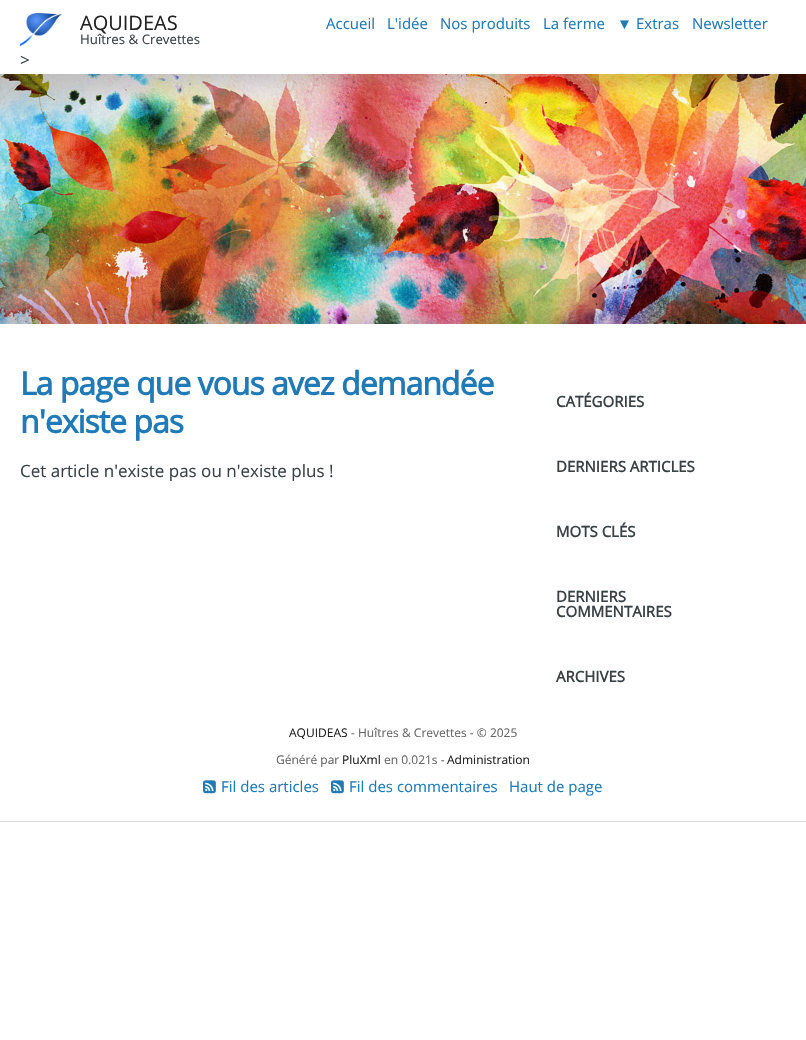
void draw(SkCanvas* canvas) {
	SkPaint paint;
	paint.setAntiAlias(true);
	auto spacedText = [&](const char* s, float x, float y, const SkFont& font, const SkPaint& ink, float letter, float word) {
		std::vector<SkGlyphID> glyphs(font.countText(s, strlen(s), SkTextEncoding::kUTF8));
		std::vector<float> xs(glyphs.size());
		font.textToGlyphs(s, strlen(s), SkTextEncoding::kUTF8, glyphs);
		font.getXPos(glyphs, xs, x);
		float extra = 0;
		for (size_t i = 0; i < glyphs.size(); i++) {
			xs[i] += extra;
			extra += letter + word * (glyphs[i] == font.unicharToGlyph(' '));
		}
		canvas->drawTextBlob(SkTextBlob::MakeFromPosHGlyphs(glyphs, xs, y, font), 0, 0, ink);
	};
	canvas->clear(0xffffffff);
	paint.setColor(0xffdddddd);
	canvas->drawRect(SkRect::MakeXYWH(0, 821, 806, 1), paint);
	canvas->drawImageRect(SkImages::DeferredFromEncodedData(SkData::MakeFromFileName("img1.png")), SkRect::MakeXYWH(20, 13, 42, 33), SkSamplingOptions());
	SkFont f1(fontMgr->matchFamilyStyle("Open Sans", SkFontStyle::Normal()), 20);
	f1.setSubpixel(true);
	paint.setColor(0xff222222);
	canvas->drawString("AQUIDEAS", 80, 30, f1, paint);
	SkFont f2(fontMgr->matchFamilyStyle("Open Sans", SkFontStyle::Normal()), 13.25);
	f2.setSubpixel(true);
	paint.setColor(0xff3a4145);
	canvas->drawString("Huîtres & Crevettes", 80, 44, f2, paint);
	SkFont f3(fontMgr->matchFamilyStyle("Open Sans", SkFontStyle::Normal()), 15);
	f3.setSubpixel(true);
	paint.setColor(0xff1f7ab7);
	canvas->drawString("Accueil", 326, 29, f3, paint);
	canvas->drawString("L'idée", 387, 29, f3, paint);
	canvas->drawString("Nos produits", 440, 29, f3, paint);
	canvas->drawString("La ferme", 543, 29, f3, paint);
	SkFont f4(fontMgr->matchFamilyStyle("Liberation Sans", SkFontStyle::Normal()), 15);
	f4.setSubpixel(true);
	canvas->drawString("▼", 617, 29, f4, paint);
	canvas->drawString("Extras", 636, 29, f3, paint);
	canvas->drawString("Newsletter", 692, 29, f3, paint);
	SkFont f5(fontMgr->matchFamilyStyle("Open Sans", SkFontStyle::Normal()), 17);
	f5.setSubpixel(true);
	paint.setColor(0xff3a4145);
	canvas->drawString(">", 20, 66, f5, paint);
	canvas->drawImageRect(SkImages::DeferredFromEncodedData(SkData::MakeFromFileName("img2.png")), SkRect::MakeXYWH(0, 74, 806, 250), SkSamplingOptions());
	SkFont f6(fontMgr->matchFamilyStyle("Open Sans", SkFontStyle::Bold()), 32);
	f6.setSubpixel(true);
	paint.setColor(0xff1f7ab7);
	spacedText("La page que vous avez demandée", 20, 395, f6, paint, -1, 0);
	spacedText("n'existe pas", 20, 433, f6, paint, -1, 0);
	paint.setColor(0xff3a4145);
	canvas->drawString("Cet article n'existe pas ou n'existe plus !", 20, 477, f5, paint);
	SkFont f7(fontMgr->matchFamilyStyle("Open Sans", SkFontStyle::Bold()), 15);
	f7.setSubpixel(true);
	canvas->drawString("CATÉGORIES", 556, 407, f7, paint);
	canvas->drawString("DERNIERS ARTICLES", 556, 472, f7, paint);
	canvas->drawString("MOTS CLÉS", 556, 537, f7, paint);
	canvas->drawString("DERNIERS", 556, 602, f7, paint);
	canvas->drawString("COMMENTAIRES", 556, 617, f7, paint);
	canvas->drawString("ARCHIVES", 556, 682, f7, paint);
	SkFont f8(fontMgr->matchFamilyStyle("Open Sans", SkFontStyle::Normal()), 12);
	f8.setSubpixel(true);
	paint.setColor(0xff222222);
	canvas->drawString("AQUIDEAS", 289, 737, f8, paint);
	paint.setColor(0xff666666);
	canvas->drawString("- Huîtres & Crevettes - © 2025", 351, 737, f8, paint);
	canvas->drawString("Généré par", 276, 764, f8, paint);
	paint.setColor(0xff222222);
	canvas->drawString("PluXml", 342, 764, f8, paint);
	paint.setColor(0xff666666);
	canvas->drawString("en 0.021s -", 384, 764, f8, paint);
	paint.setColor(0xff222222);
	canvas->drawString("Administration", 447, 764, f8, paint);
	canvas->drawImageRect(SkImages::DeferredFromEncodedData(SkData::MakeFromFileName("img3.png")), SkRect::MakeXYWH(203, 780, 13, 14), SkSamplingOptions());
	paint.setColor(0xff1f7ab7);
	canvas->drawString("Fil des articles", 221, 792, f3, paint);
	canvas->drawImageRect(SkImages::DeferredFromEncodedData(SkData::MakeFromFileName("img3.png")), SkRect::MakeXYWH(331, 780, 13, 14), SkSamplingOptions());
	canvas->drawString("Fil des commentaires", 349, 792, f3, paint);
	canvas->drawString("Haut de page", 509, 792, f3, paint);
}
